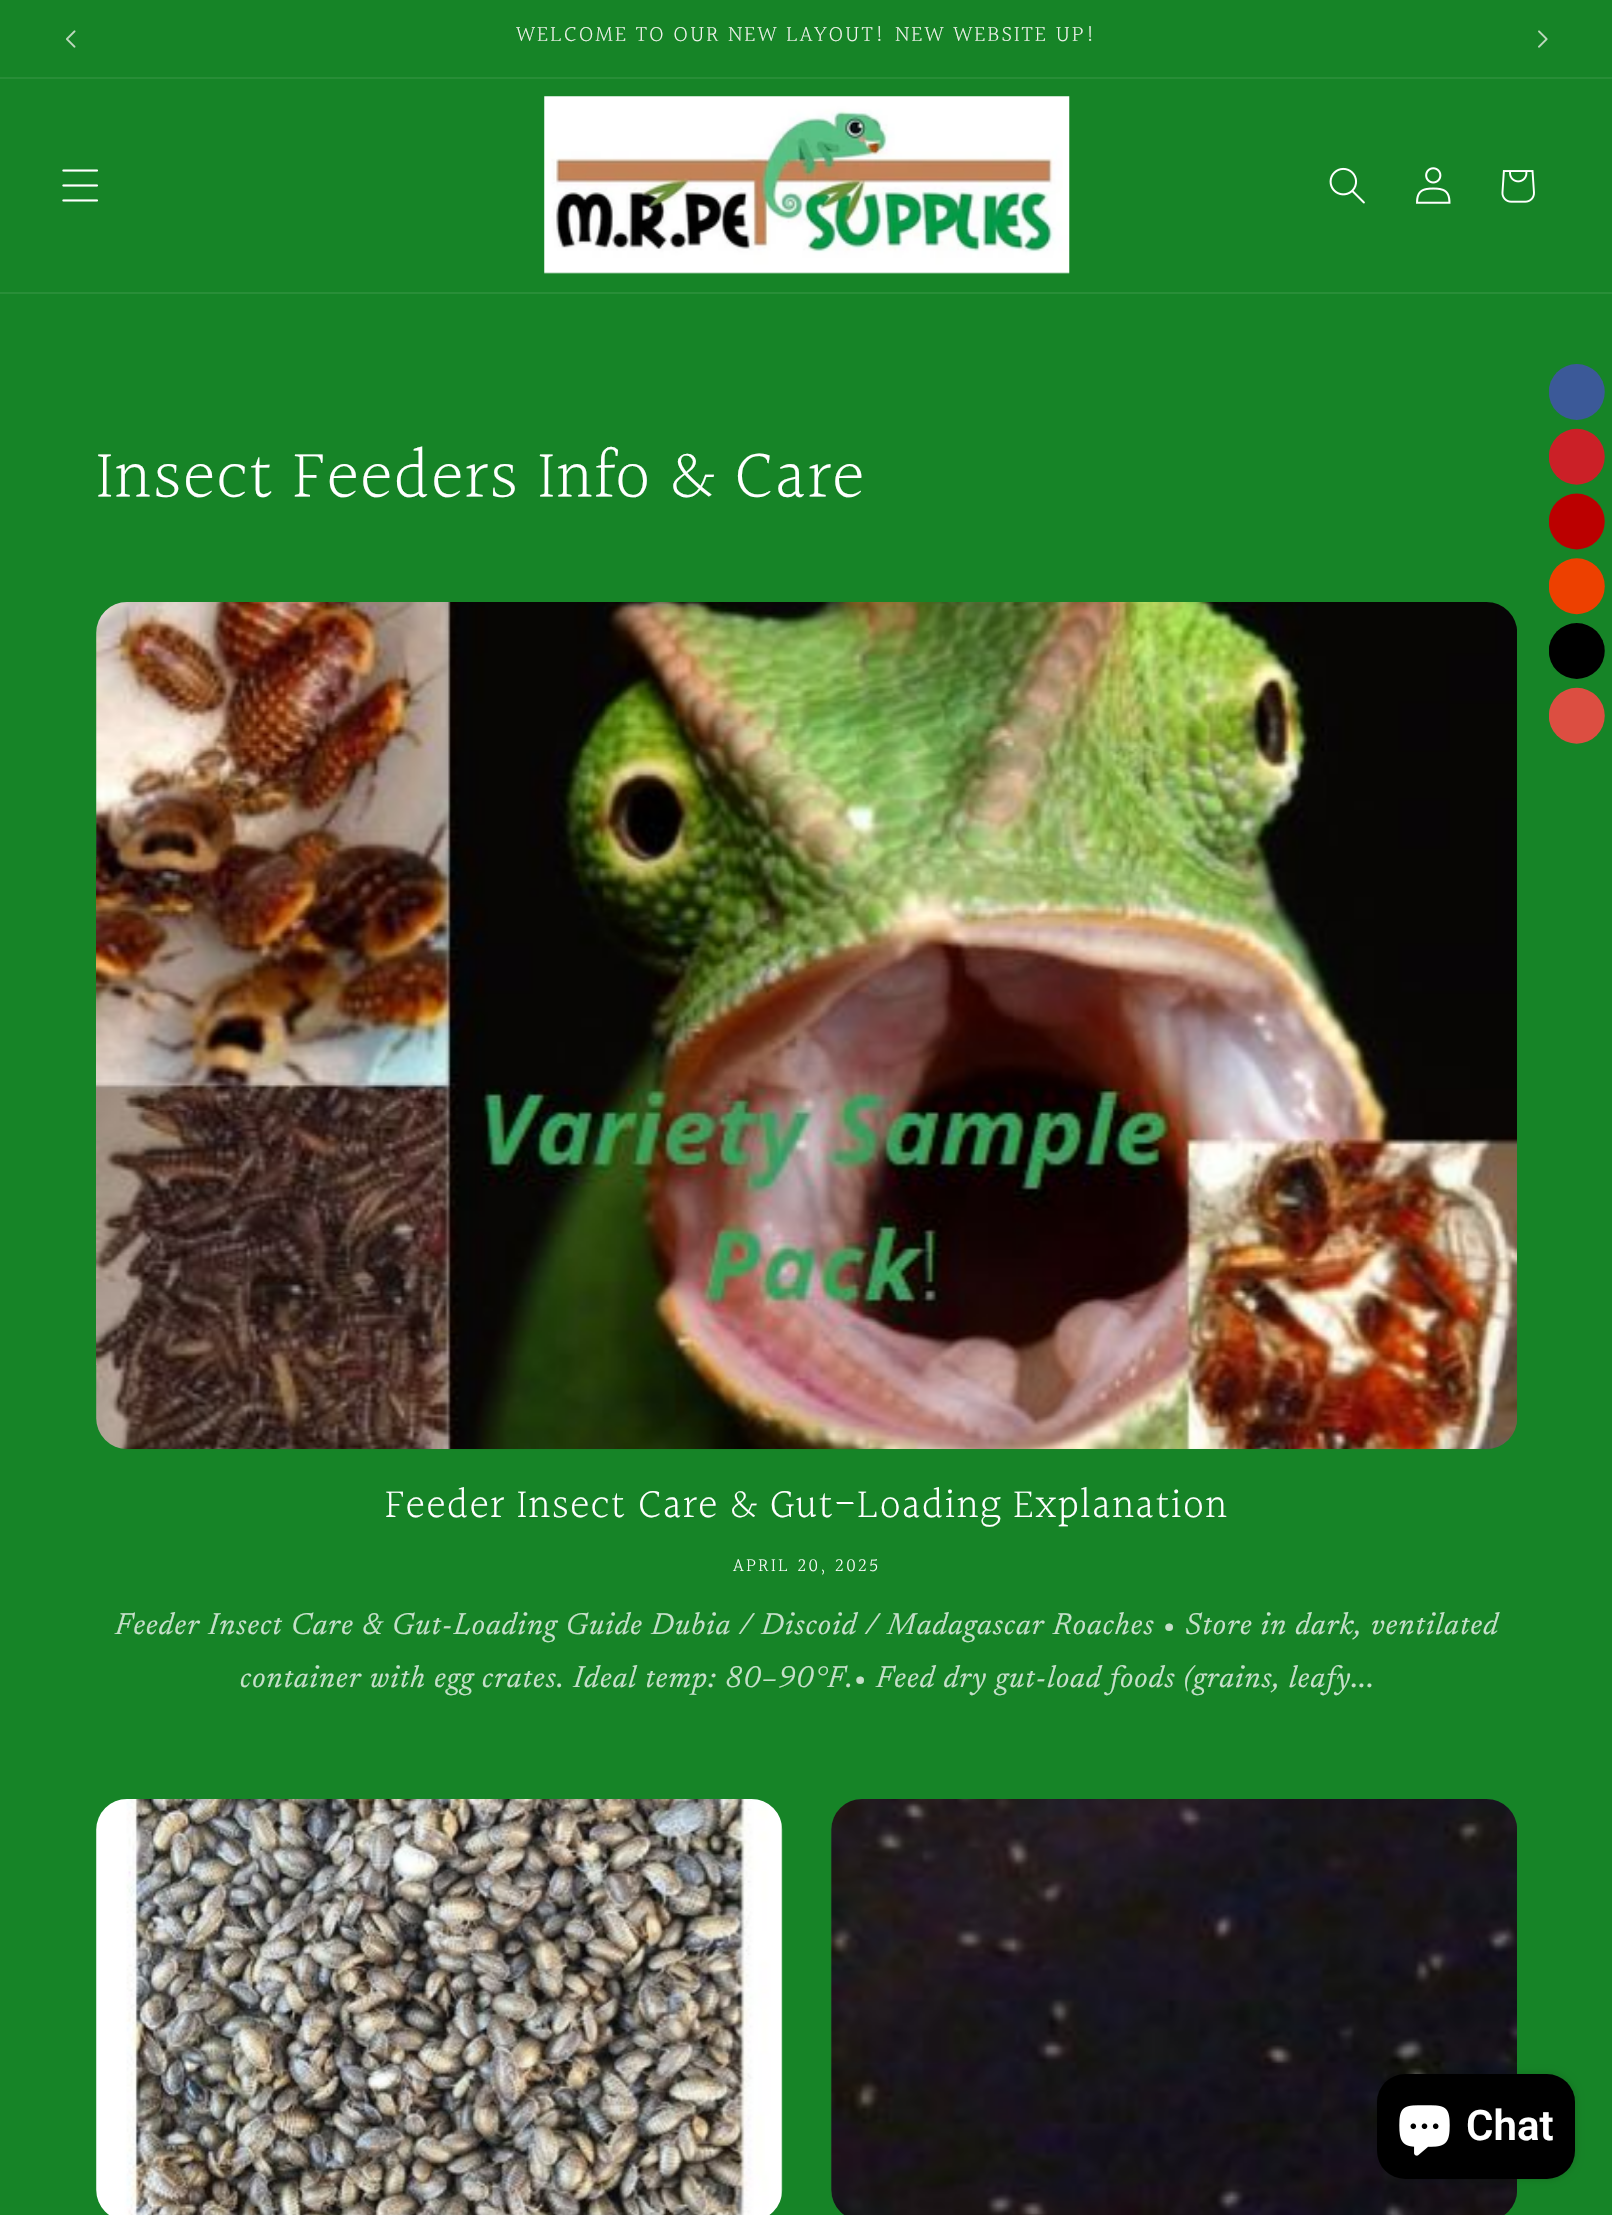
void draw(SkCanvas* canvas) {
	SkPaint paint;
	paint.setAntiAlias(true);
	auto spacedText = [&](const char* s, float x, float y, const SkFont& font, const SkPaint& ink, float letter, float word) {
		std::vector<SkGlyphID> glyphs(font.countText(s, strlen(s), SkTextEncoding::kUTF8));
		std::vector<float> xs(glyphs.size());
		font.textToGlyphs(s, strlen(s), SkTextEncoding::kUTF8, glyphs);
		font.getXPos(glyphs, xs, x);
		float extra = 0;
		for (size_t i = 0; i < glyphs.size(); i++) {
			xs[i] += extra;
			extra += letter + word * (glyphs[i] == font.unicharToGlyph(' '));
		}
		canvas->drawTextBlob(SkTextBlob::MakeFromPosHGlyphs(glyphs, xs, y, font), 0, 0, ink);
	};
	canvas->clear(0xff168427);
	paint.setColor(0xff288d37);
	canvas->drawRect(SkRect::MakeXYWH(0, 77, 1612, 2), paint);
	canvas->drawImageRect(SkImages::DeferredFromEncodedData(SkData::MakeFromFileName("img1.png")), SkRect::MakeXYWH(66, 30, 10, 18), SkSamplingOptions());
	SkFont f1(fontMgr->matchFamilyStyle("Halant", SkFontStyle(300, SkFontStyle::kNormal_Width, SkFontStyle::kUpright_Slant)), 22.75);
	f1.setSubpixel(true);
	paint.setColor(0xfff5f4f0);
	spacedText("WELCOME TO OUR NEW LAYOUT! NEW WEBSITE UP!", 516, 42, f1, paint, 1.95, 0);
	canvas->drawImageRect(SkImages::DeferredFromEncodedData(SkData::MakeFromFileName("img2.png")), SkRect::MakeXYWH(1538, 30, 10, 18), SkSamplingOptions());
	paint.setColor(0xff298e38);
	canvas->drawRect(SkRect::MakeXYWH(0, 292, 1612, 2), paint);
	canvas->drawImageRect(SkImages::DeferredFromEncodedData(SkData::MakeFromFileName("img3.png")), SkRect::MakeXYWH(62, 169, 36, 33), SkSamplingOptions());
	canvas->drawImageRect(SkImages::DeferredFromEncodedData(SkData::MakeFromFileName("img4.png")), SkRect::MakeXYWH(544, 96, 526, 178), SkSamplingOptions());
	canvas->drawImageRect(SkImages::DeferredFromEncodedData(SkData::MakeFromFileName("img5.png")), SkRect::MakeXYWH(1329, 167, 36, 37), SkSamplingOptions());
	canvas->drawImageRect(SkImages::DeferredFromEncodedData(SkData::MakeFromFileName("img6.png")), SkRect::MakeXYWH(1416, 167, 35, 37), SkSamplingOptions());
	canvas->drawImageRect(SkImages::DeferredFromEncodedData(SkData::MakeFromFileName("img7.png")), SkRect::MakeXYWH(1501, 170, 34, 33), SkSamplingOptions());
	SkFont f2(fontMgr->matchFamilyStyle("Halant", SkFontStyle(300, SkFontStyle::kNormal_Width, SkFontStyle::kUpright_Slant)), 70);
	f2.setSubpixel(true);
	paint.setColor(0xffffffff);
	spacedText("Insect Feeders Info & Care", 96, 500, f2, paint, 1.05, 0);
	paint.setColor(0xff2c8d3c);
	canvas->drawRoundRect(SkRect::MakeXYWH(96, 602, 1421, 847), 32, 32, paint);
	canvas->drawImageRect(SkImages::DeferredFromEncodedData(SkData::MakeFromFileName("img8.png")), SkRect::MakeXYWH(96, 602, 1421, 847), SkSamplingOptions());
	SkFont f3(fontMgr->matchFamilyStyle("Halant", SkFontStyle(300, SkFontStyle::kNormal_Width, SkFontStyle::kUpright_Slant)), 42);
	f3.setSubpixel(true);
	paint.setColor(0xffffffff);
	spacedText("Feeder Insect Care & Gut-Loading Explanation", 385, 1519, f3, paint, 1.05, 0);
	SkFont f4(fontMgr->matchFamilyStyle("Halant", SkFontStyle(300, SkFontStyle::kNormal_Width, SkFontStyle::kUpright_Slant)), 19.25);
	f4.setSubpixel(true);
	spacedText("APRIL 20, 2025", 733, 1572, f4, paint, 2.5, 0);
	SkFont f5(fontMgr->matchFamilyStyle("Newsreader", SkFontStyle::Italic()), 30.8);
	f5.setSubpixel(true);
	paint.setColor(0xffc5e0c9);
	spacedText("Feeder Insect Care & Gut-Loading Guide Dubia / Discoid / Madagascar Roaches • Store in dark, ventilated", 115, 1634, f5, paint, 1.16, 0);
	spacedText("container with egg crates. Ideal temp: 80–90°F.• Feed dry gut-load foods (grains, leafy...", 240, 1687, f5, paint, 1.16, 0);
	paint.setColor(0xff2c8f3b);
	canvas->drawRoundRect(SkRect::MakeXYWH(96, 1799, 686, 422), 32, 32, paint);
	canvas->drawImageRect(SkImages::DeferredFromEncodedData(SkData::MakeFromFileName("img9.png")), SkRect::MakeXYWH(96, 1799, 687, 416), SkSamplingOptions());
	canvas->drawRoundRect(SkRect::MakeXYWH(831, 1799, 686, 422), 32, 32, paint);
	canvas->drawImageRect(SkImages::DeferredFromEncodedData(SkData::MakeFromFileName("img10.png")), SkRect::MakeXYWH(831, 1799, 686, 416), SkSamplingOptions());
	canvas->drawImageRect(SkImages::DeferredFromEncodedData(SkData::MakeFromFileName("img11.png")), SkRect::MakeXYWH(1549, 364, 56, 380), SkSamplingOptions());
	paint.setColor(0x26000000);
	paint.setMaskFilter(SkMaskFilter::MakeBlur(kNormal_SkBlurStyle, 4.5));
	canvas->drawRoundRect(SkRect::MakeXYWH(1377, 2074, 198, 105), 28, 28, paint);
	paint.setMaskFilter(nullptr);
	paint.setColor(0xff000000);
	canvas->drawRoundRect(SkRect::MakeXYWH(1377, 2074, 198, 105), 28, 28, paint);
	canvas->drawImageRect(SkImages::DeferredFromEncodedData(SkData::MakeFromFileName("img12.png")), SkRect::MakeXYWH(1399, 2105, 51, 51), SkSamplingOptions());
	SkFont f6(fontMgr->matchFamilyStyle("Roboto", SkFontStyle(600, SkFontStyle::kNormal_Width, SkFontStyle::kUpright_Slant)), 42);
	f6.setSubpixel(true);
	paint.setColor(0xffffffff);
	canvas->drawString("Chat", 1466, 2140, f6, paint);
}
